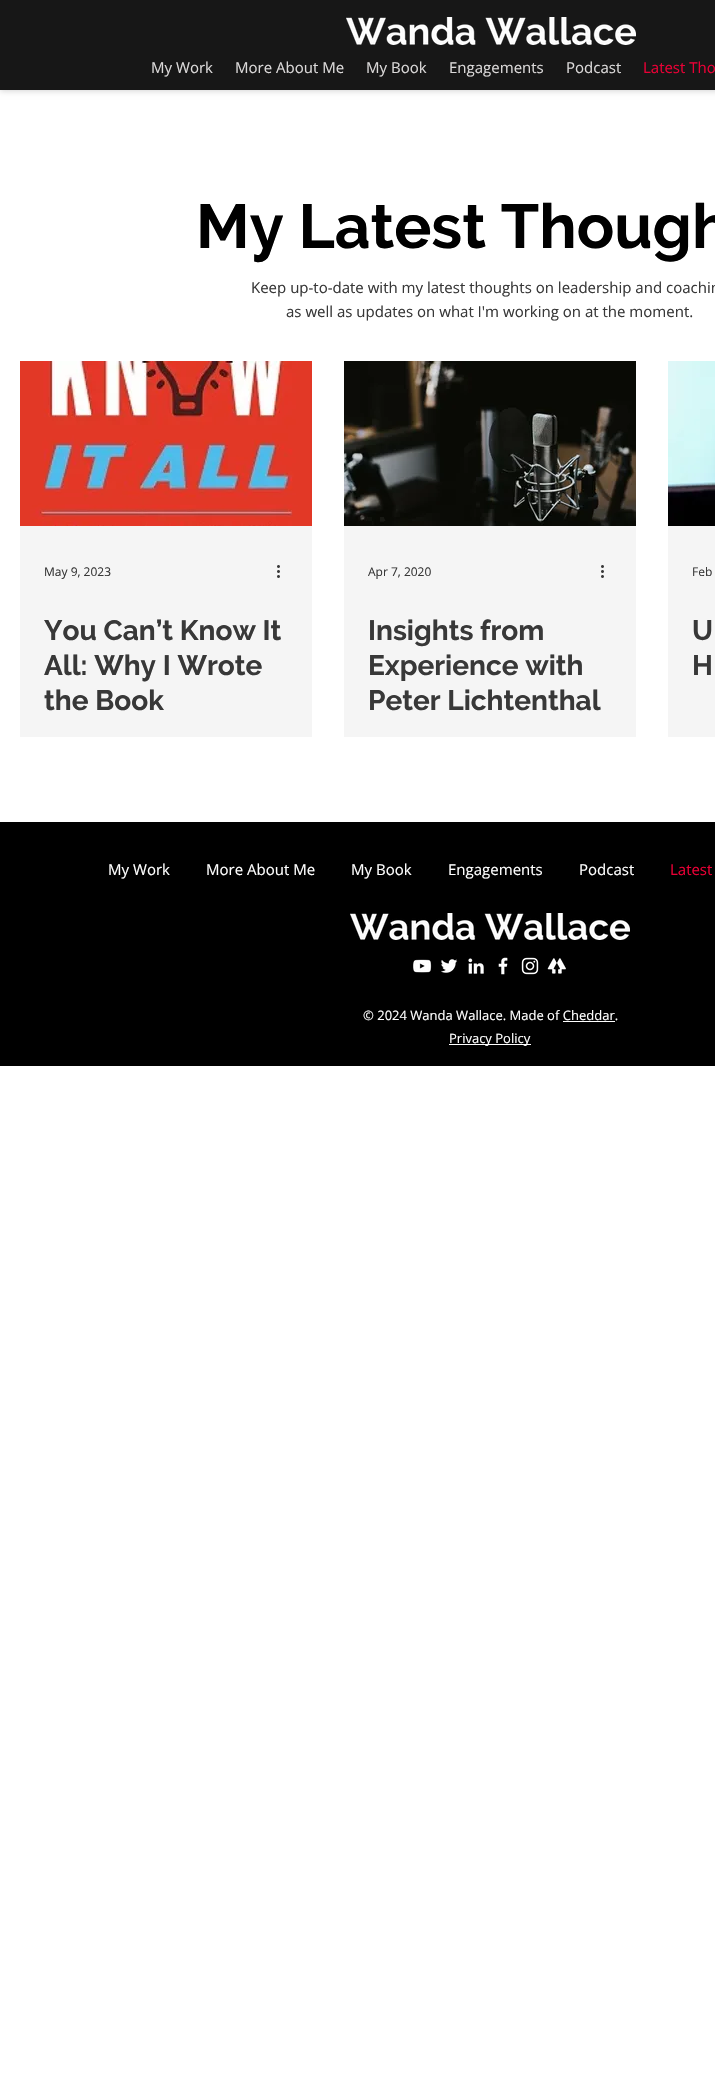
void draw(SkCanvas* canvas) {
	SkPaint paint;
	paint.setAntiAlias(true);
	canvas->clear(0xffffffff);
	paint.setColor(0x2b000000);
	paint.setMaskFilter(SkMaskFilter::MakeBlur(kNormal_SkBlurStyle, 3));
	canvas->drawRect(SkRect::MakeXYWH(0, 1, 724, 90), paint);
	paint.setMaskFilter(nullptr);
	paint.setColor(0xff171717);
	canvas->drawRect(SkRect::MakeXYWH(0, 0, 715, 90), paint);
	canvas->drawImageRect(SkImages::DeferredFromEncodedData(SkData::MakeFromFileName("img1.png")), SkRect::MakeXYWH(346, 17, 290, 28), SkSamplingOptions());
	SkFont f1(fontMgr->matchFamilyStyle("Open Sans", SkFontStyle::Normal()), 15);
	f1.setSubpixel(true);
	paint.setColor(0xffdbd9d9);
	canvas->drawString("My Work", 151, 73, f1, paint);
	canvas->drawString("More About Me", 235, 73, f1, paint);
	canvas->drawString("My Book", 366, 73, f1, paint);
	canvas->drawString("Engagements", 449, 73, f1, paint);
	canvas->drawString("Podcast", 566, 73, f1, paint);
	paint.setColor(0xffe90035);
	canvas->drawString("Latest Tho", 643, 73, f1, paint);
	SkFont f2(fontMgr->matchFamilyStyle("Raleway", SkFontStyle::Bold()), 62);
	f2.setSubpixel(true);
	paint.setColor(0xff000000);
	canvas->drawString("My Latest Though", 196, 248, f2, paint);
	paint.setColor(0xff383838);
	canvas->drawString("Keep up-to-date with my latest thoughts on leadership and coachin", 251, 293, f1, paint);
	canvas->drawString("as well as updates on what I'm working on at the moment.", 286, 317, f1, paint);
	paint.setColor(0xfff5f5f5);
	canvas->drawRect(SkRect::MakeXYWH(20, 526, 292, 211), paint);
	canvas->drawImageRect(SkImages::DeferredFromEncodedData(SkData::MakeFromFileName("img2.png")), SkRect::MakeXYWH(20, 361, 292, 165), SkSamplingOptions());
	SkFont f3(fontMgr->matchFamilyStyle("Open Sans", SkFontStyle::Normal()), 12);
	f3.setSubpixel(true);
	paint.setColor(0xff383838);
	canvas->drawString("May 9, 2023", 44, 576, f3, paint);
	canvas->drawImageRect(SkImages::DeferredFromEncodedData(SkData::MakeFromFileName("img3.png")), SkRect::MakeXYWH(277, 565, 3, 13), SkSamplingOptions());
	SkFont f4(fontMgr->matchFamilyStyle("Raleway", SkFontStyle::Bold()), 28);
	f4.setSubpixel(true);
	canvas->drawString("You Can’t Know It", 44, 640, f4, paint);
	canvas->drawString("All: Why I Wrote", 44, 675, f4, paint);
	canvas->drawString("the Book", 44, 710, f4, paint);
	paint.setColor(0xfff5f5f5);
	canvas->drawRect(SkRect::MakeXYWH(344, 526, 292, 211), paint);
	canvas->drawImageRect(SkImages::DeferredFromEncodedData(SkData::MakeFromFileName("img4.png")), SkRect::MakeXYWH(344, 361, 292, 165), SkSamplingOptions());
	paint.setColor(0xff383838);
	canvas->drawString("Apr 7, 2020", 368, 576, f3, paint);
	canvas->drawImageRect(SkImages::DeferredFromEncodedData(SkData::MakeFromFileName("img3.png")), SkRect::MakeXYWH(601, 565, 3, 13), SkSamplingOptions());
	canvas->drawString("Insights from", 368, 640, f4, paint);
	canvas->drawString("Experience with", 368, 675, f4, paint);
	canvas->drawString("Peter Lichtenthal", 368, 710, f4, paint);
	paint.setColor(0xfff5f5f5);
	canvas->drawRect(SkRect::MakeXYWH(668, 526, 47, 211), paint);
	canvas->drawImageRect(SkImages::DeferredFromEncodedData(SkData::MakeFromFileName("img5.png")), SkRect::MakeXYWH(668, 361, 47, 165), SkSamplingOptions());
	paint.setColor(0xff383838);
	canvas->drawString("Feb", 692, 576, f3, paint);
	canvas->drawString("U", 692, 640, f4, paint);
	canvas->drawString("H", 692, 675, f4, paint);
	paint.setColor(0xff000000);
	canvas->drawRect(SkRect::MakeXYWH(0, 822, 715, 244), paint);
	paint.setColor(0xffffffff);
	canvas->drawString("My Work", 108, 875, f1, paint);
	canvas->drawString("More About Me", 206, 875, f1, paint);
	canvas->drawString("My Book", 351, 875, f1, paint);
	canvas->drawString("Engagements", 448, 875, f1, paint);
	canvas->drawString("Podcast", 579, 875, f1, paint);
	paint.setColor(0xffe90035);
	canvas->drawString("Latest", 670, 875, f1, paint);
	canvas->drawImageRect(SkImages::DeferredFromEncodedData(SkData::MakeFromFileName("img6.png")), SkRect::MakeXYWH(350, 913, 280, 27), SkSamplingOptions());
	canvas->drawImageRect(SkImages::DeferredFromEncodedData(SkData::MakeFromFileName("img7.png")), SkRect::MakeXYWH(413, 959, 19, 14), SkSamplingOptions());
	canvas->drawImageRect(SkImages::DeferredFromEncodedData(SkData::MakeFromFileName("img8.png")), SkRect::MakeXYWH(441, 959, 17, 14), SkSamplingOptions());
	canvas->drawImageRect(SkImages::DeferredFromEncodedData(SkData::MakeFromFileName("img9.png")), SkRect::MakeXYWH(468, 958, 16, 16), SkSamplingOptions());
	canvas->drawImageRect(SkImages::DeferredFromEncodedData(SkData::MakeFromFileName("img10.png")), SkRect::MakeXYWH(498, 957, 10, 18), SkSamplingOptions());
	canvas->drawImageRect(SkImages::DeferredFromEncodedData(SkData::MakeFromFileName("img11.png")), SkRect::MakeXYWH(521, 957, 18, 18), SkSamplingOptions());
	canvas->drawImageRect(SkImages::DeferredFromEncodedData(SkData::MakeFromFileName("img12.png")), SkRect::MakeXYWH(547, 958, 19, 16), SkSamplingOptions());
	SkFont f5(fontMgr->matchFamilyStyle("Open Sans", SkFontStyle::Normal()), 13);
	f5.setSubpixel(true);
	paint.setColor(0xffffffff);
	canvas->drawString("© 2024 Wanda Wallace. Made of Cheddar.", 363, 1020, f5, paint);
	canvas->drawRect(SkRect::MakeXYWH(563, 1021, 52, 1), paint);
	canvas->drawRect(SkRect::MakeXYWH(449, 1044, 82, 1), paint);
	canvas->drawString("Privacy Policy", 449, 1043, f5, paint);
}
